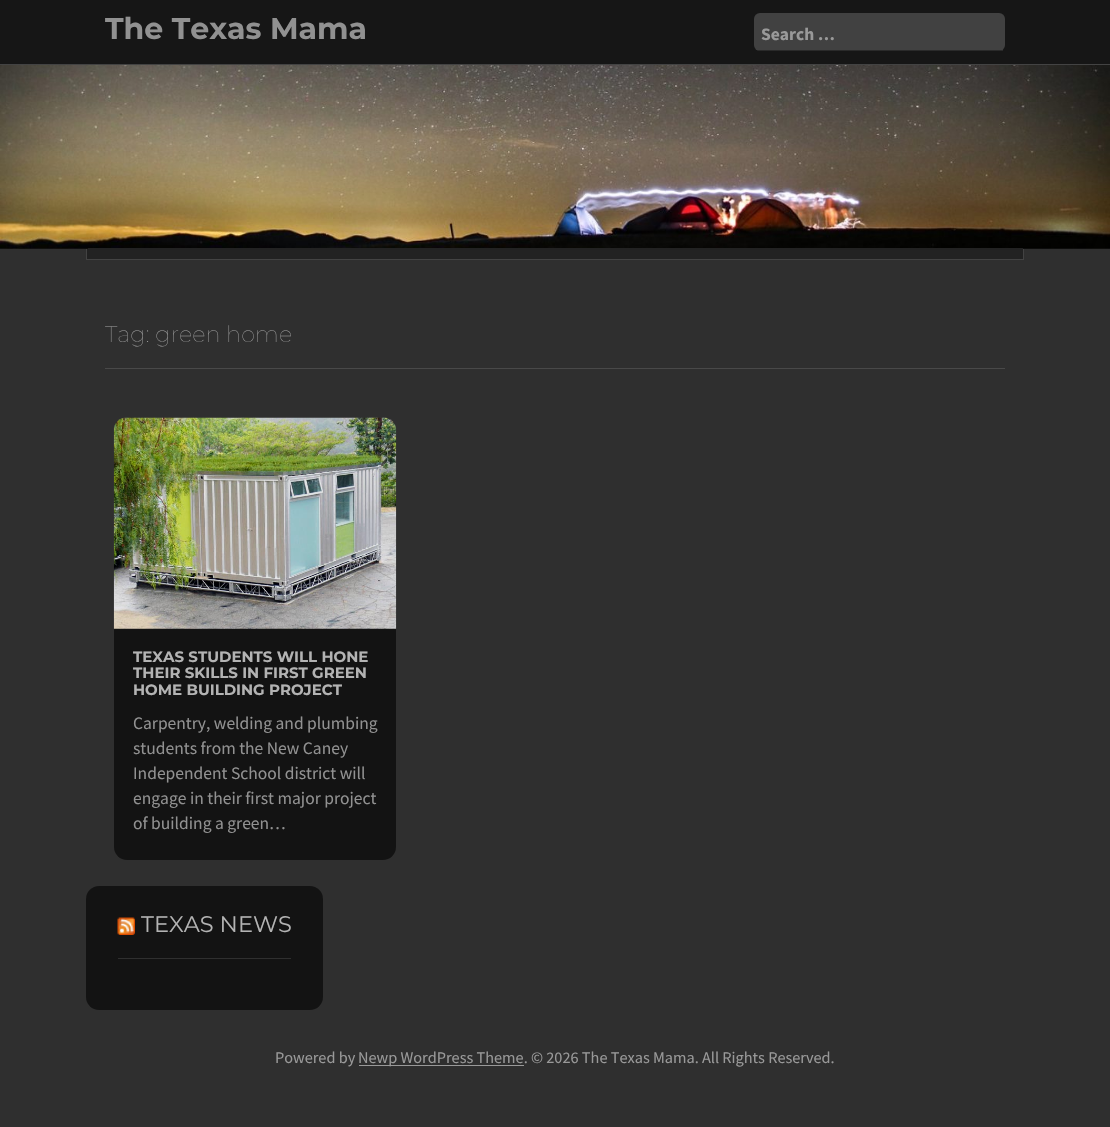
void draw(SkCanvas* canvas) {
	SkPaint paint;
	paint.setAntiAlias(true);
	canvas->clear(0xff2f2f2f);
	paint.setColor(0xff161616);
	canvas->drawRect(SkRect::MakeXYWH(0, 0, 1110, 64), paint);
	paint.setColor(0xff434343);
	canvas->drawRect(SkRect::MakeXYWH(0, 64, 1110, 1), paint);
	SkFont f1(fontMgr->matchFamilyStyle("Montserrat", SkFontStyle::Bold()), 30);
	f1.setSubpixel(true);
	paint.setColor(0xff919191);
	canvas->drawString("The Texas Mama", 105, 39, f1, paint);
	paint.setColor(0xff414141);
	canvas->drawRoundRect(SkRect::MakeXYWH(754, 13, 251, 38), 6, 6, paint);
	paint.setColor(0xff2a2a2a);
	canvas->drawRect(SkRect::MakeXYWH(758, 50, 245, 1), paint);
	SkFont f2(fontMgr->matchFamilyStyle("Source Sans Pro", SkFontStyle::Bold()), 17.5);
	f2.setSubpixel(true);
	paint.setColor(0xff999999);
	canvas->drawString("Search …", 761, 40, f2, paint);
	canvas->drawImageRect(SkImages::DeferredFromEncodedData(SkData::MakeFromFileName("img1.png")), SkRect::MakeXYWH(0, 65, 1110, 184), SkSamplingOptions());
	paint.setColor(0xff222222);
	canvas->drawRect(SkRect::MakeXYWH(87, 249, 936, 10), paint);
	paint.setColor(0xff434343);
	canvas->drawRect(SkRect::MakeXYWH(1023, 249, 1, 11), paint);
	canvas->drawRect(SkRect::MakeXYWH(86, 259, 938, 1), paint);
	canvas->drawRect(SkRect::MakeXYWH(86, 249, 1, 11), paint);
	paint.setColor(0xff222222);
	canvas->drawRect(SkRect::MakeXYWH(88, 248, 935, 1), paint);
	paint.setColor(0xff494949);
	canvas->drawRect(SkRect::MakeXYWH(105, 368, 900, 1), paint);
	SkFont f3(fontMgr->matchFamilyStyle("Montserrat", SkFontStyle(100, SkFontStyle::kNormal_Width, SkFontStyle::kUpright_Slant)), 22.5);
	f3.setSubpixel(true);
	paint.setColor(0xff999999);
	canvas->drawString("Tag: green home", 105, 342, f3, paint);
	paint.setColor(0xff131313);
	canvas->drawRoundRect(SkRect::MakeXYWH(114, 418, 282, 442), 13, 13, paint);
	canvas->drawImageRect(SkImages::DeferredFromEncodedData(SkData::MakeFromFileName("img2.png")), SkRect::MakeXYWH(113, 417, 284, 212), SkSamplingOptions());
	SkFont f4(fontMgr->matchFamilyStyle("Montserrat", SkFontStyle::Bold()), 15);
	f4.setSubpixel(true);
	paint.setColor(0xffb3b3b3);
	canvas->drawString("TEXAS STUDENTS WILL HONE", 133, 662, f4, paint);
	canvas->drawString("THEIR SKILLS IN FIRST GREEN", 133, 678, f4, paint);
	canvas->drawString("HOME BUILDING PROJECT", 133, 695, f4, paint);
	SkFont f5(fontMgr->matchFamilyStyle("Source Sans Pro", SkFontStyle::Normal()), 17.5);
	f5.setSubpixel(true);
	paint.setColor(0xff919191);
	canvas->drawString("Carpentry, welding and plumbing", 133, 729, f5, paint);
	canvas->drawString("students from the New Caney", 133, 754, f5, paint);
	canvas->drawString("Independent School district will", 133, 779, f5, paint);
	canvas->drawString("engage in their first major project", 133, 804, f5, paint);
	canvas->drawString("of building a green…", 133, 829, f5, paint);
	paint.setColor(0xff131313);
	canvas->drawRoundRect(SkRect::MakeXYWH(86, 886, 237, 124), 13, 13, paint);
	paint.setColor(0xff2f2f2f);
	canvas->drawRect(SkRect::MakeXYWH(118, 958, 173, 1), paint);
	canvas->drawImageRect(SkImages::DeferredFromEncodedData(SkData::MakeFromFileName("img3.png")), SkRect::MakeXYWH(117, 917, 18, 18), SkSamplingOptions());
	SkFont f6(fontMgr->matchFamilyStyle("Montserrat", SkFontStyle::Normal()), 22.5);
	f6.setSubpixel(true);
	paint.setColor(0xffb3b3b3);
	canvas->drawString("TEXAS NEWS", 141, 932, f6, paint);
	SkFont f7(fontMgr->matchFamilyStyle("Source Sans Pro", SkFontStyle::Normal()), 16.25);
	f7.setSubpixel(true);
	paint.setColor(0xff999999);
	canvas->drawString("Powered by", 275, 1063, f7, paint);
	canvas->drawRect(SkRect::MakeXYWH(359, 1065, 165, 1), paint);
	canvas->drawString("Newp WordPress Theme. © 2026 The Texas Mama. All Rights Reserved.", 358, 1063, f7, paint);
}
